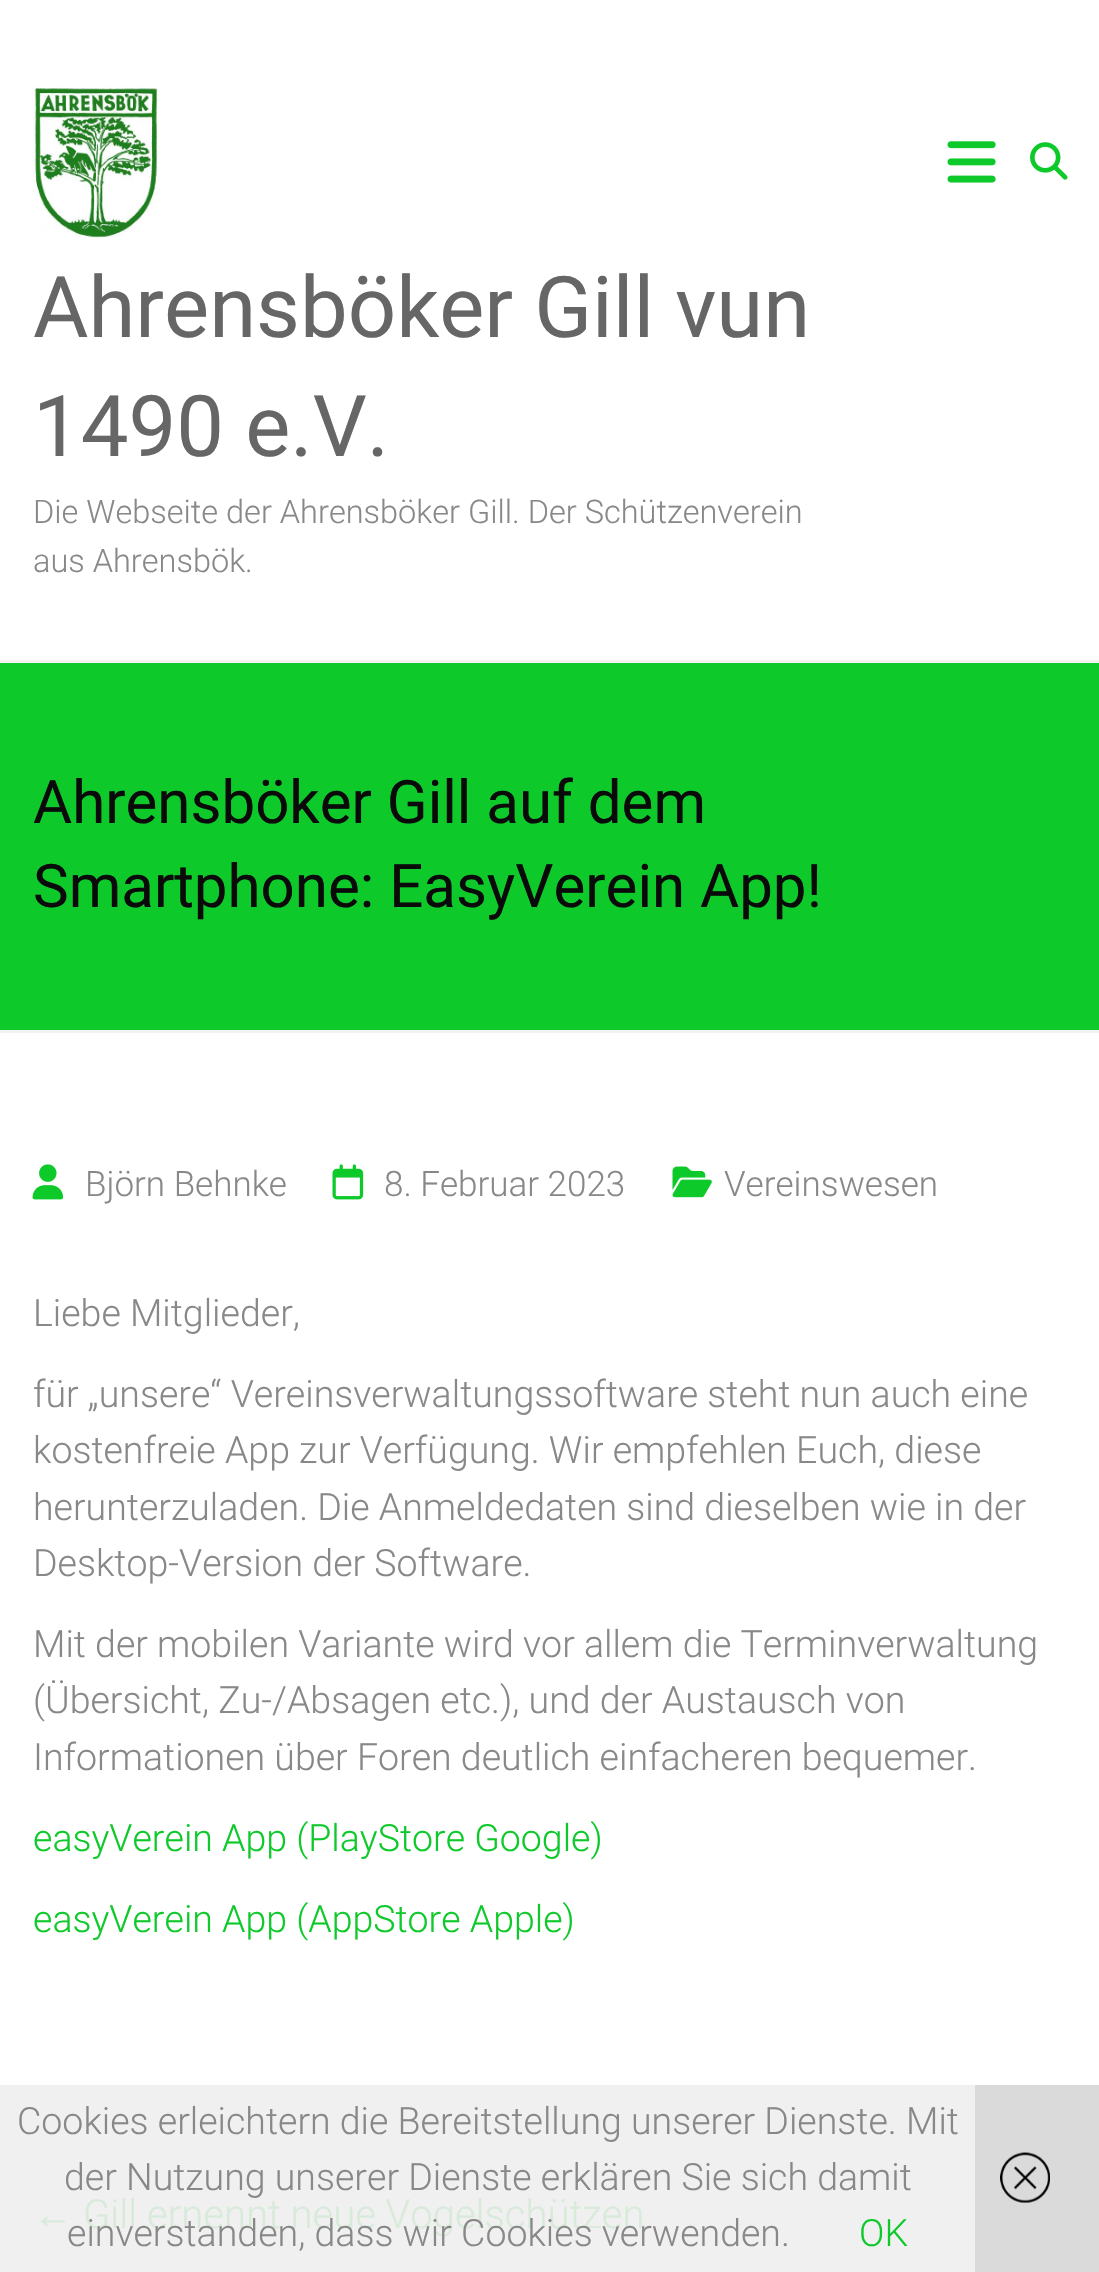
void draw(SkCanvas* canvas) {
	SkPaint paint;
	paint.setAntiAlias(true);
	canvas->clear(0xffffffff);
	paint.setColor(0xfff0f0f0);
	canvas->drawRect(SkRect::MakeXYWH(0, 2085, 975, 187), paint);
	paint.setColor(0xfff2f2f2);
	canvas->drawRect(SkRect::MakeXYWH(0, 660, 1099, 3), paint);
	canvas->drawImageRect(SkImages::DeferredFromEncodedData(SkData::MakeFromFileName("img1.png")), SkRect::MakeXYWH(947, 141, 49, 42), SkSamplingOptions());
	canvas->drawImageRect(SkImages::DeferredFromEncodedData(SkData::MakeFromFileName("img2.png")), SkRect::MakeXYWH(1030, 142, 38, 38), SkSamplingOptions());
	canvas->drawImageRect(SkImages::DeferredFromEncodedData(SkData::MakeFromFileName("img3.png")), SkRect::MakeXYWH(32, 87, 126, 151), SkSamplingOptions());
	SkFont f1(fontMgr->matchFamilyStyle("Roboto", SkFontStyle::Normal()), 85);
	f1.setSubpixel(true);
	paint.setColor(0xff666666);
	canvas->drawString("Ahrensböker Gill vun", 33, 337, f1, paint);
	canvas->drawString("1490 e.V.", 33, 456, f1, paint);
	SkFont f2(fontMgr->matchFamilyStyle("Roboto", SkFontStyle(300, SkFontStyle::kNormal_Width, SkFontStyle::kUpright_Slant)), 32.5);
	f2.setSubpixel(true);
	paint.setColor(0xff888888);
	canvas->drawString("Die Webseite der Ahrensböker Gill. Der Schützenverein", 33, 523, f2, paint);
	canvas->drawString("aus Ahrensbök.", 33, 572, f2, paint);
	paint.setColor(0xff0ec92a);
	canvas->drawRect(SkRect::MakeXYWH(0, 663, 1099, 367), paint);
	paint.setColor(0xfff2f2f2);
	canvas->drawRect(SkRect::MakeXYWH(0, 1030, 1099, 3), paint);
	SkFont f3(fontMgr->matchFamilyStyle("Roboto", SkFontStyle::Normal()), 60);
	f3.setSubpixel(true);
	paint.setColor(0xff0a0a0a);
	canvas->drawString("Ahrensböker Gill auf dem", 33, 823, f3, paint);
	canvas->drawString("Smartphone: EasyVerein App!", 33, 907, f3, paint);
	canvas->drawImageRect(SkImages::DeferredFromEncodedData(SkData::MakeFromFileName("img4.png")), SkRect::MakeXYWH(32, 1164, 32, 36), SkSamplingOptions());
	SkFont f4(fontMgr->matchFamilyStyle("Roboto", SkFontStyle(300, SkFontStyle::kNormal_Width, SkFontStyle::kUpright_Slant)), 35);
	f4.setSubpixel(true);
	paint.setColor(0xff888888);
	canvas->drawString("Björn Behnke", 85, 1196, f4, paint);
	canvas->drawImageRect(SkImages::DeferredFromEncodedData(SkData::MakeFromFileName("img5.png")), SkRect::MakeXYWH(332, 1164, 32, 36), SkSamplingOptions());
	canvas->drawString("8. Februar 2023", 384, 1196, f4, paint);
	canvas->drawImageRect(SkImages::DeferredFromEncodedData(SkData::MakeFromFileName("img6.png")), SkRect::MakeXYWH(672, 1166, 40, 32), SkSamplingOptions());
	canvas->drawString("Vereinswesen", 724, 1196, f4, paint);
	SkFont f5(fontMgr->matchFamilyStyle("Roboto", SkFontStyle(300, SkFontStyle::kNormal_Width, SkFontStyle::kUpright_Slant)), 37.5);
	f5.setSubpixel(true);
	canvas->drawString("Liebe Mitglieder,", 33, 1326, f5, paint);
	canvas->drawString("für „unsere“ Vereinsverwaltungssoftware steht nun auch eine", 33, 1407, f5, paint);
	canvas->drawString("kostenfreie App zur Verfügung. Wir empfehlen Euch, diese", 33, 1463, f5, paint);
	canvas->drawString("herunterzuladen. Die Anmeldedaten sind dieselben wie in der", 33, 1520, f5, paint);
	canvas->drawString("Desktop-Version der Software.", 33, 1576, f5, paint);
	canvas->drawString("Mit der mobilen Variante wird vor allem die Terminverwaltung", 33, 1657, f5, paint);
	canvas->drawString("(Übersicht, Zu-/Absagen etc.), und der Austausch von", 33, 1713, f5, paint);
	canvas->drawString("Informationen über Foren deutlich einfacheren bequemer.", 33, 1770, f5, paint);
	paint.setColor(0xff0ec92a);
	canvas->drawString("easyVerein App (PlayStore Google)", 33, 1851, f5, paint);
	canvas->drawString("easyVerein App (AppStore Apple)", 33, 1932, f5, paint);
	SkFont f6(fontMgr->matchFamilyStyle("Liberation Sans", SkFontStyle::Normal()), 40);
	f6.setSubpixel(true);
	paint.setColor(0xffd8eada);
	canvas->drawString("←", 33, 2228, f6, paint);
	SkFont f7(fontMgr->matchFamilyStyle("Roboto", SkFontStyle(300, SkFontStyle::kNormal_Width, SkFontStyle::kUpright_Slant)), 40);
	f7.setSubpixel(true);
	canvas->drawString("Gill ernennt neue Vogelschützen", 83, 2228, f7, paint);
	paint.setColor(0xff888888);
	canvas->drawString("Cookies erleichtern die Bereitstellung unserer Dienste. Mit", 17, 2134, f5, paint);
	canvas->drawString("der Nutzung unserer Dienste erklären Sie sich damit", 64, 2190, f5, paint);
	canvas->drawString("einverstanden, dass wir Cookies verwenden.", 67, 2246, f5, paint);
	paint.setColor(0xff0ec92a);
	canvas->drawString("OK", 859, 2246, f5, paint);
	paint.setColor(0xffdadada);
	canvas->drawRect(SkRect::MakeXYWH(975, 2085, 124, 187), paint);
	canvas->drawImageRect(SkImages::DeferredFromEncodedData(SkData::MakeFromFileName("img7.png")), SkRect::MakeXYWH(1000, 2152, 50, 51), SkSamplingOptions());
}
